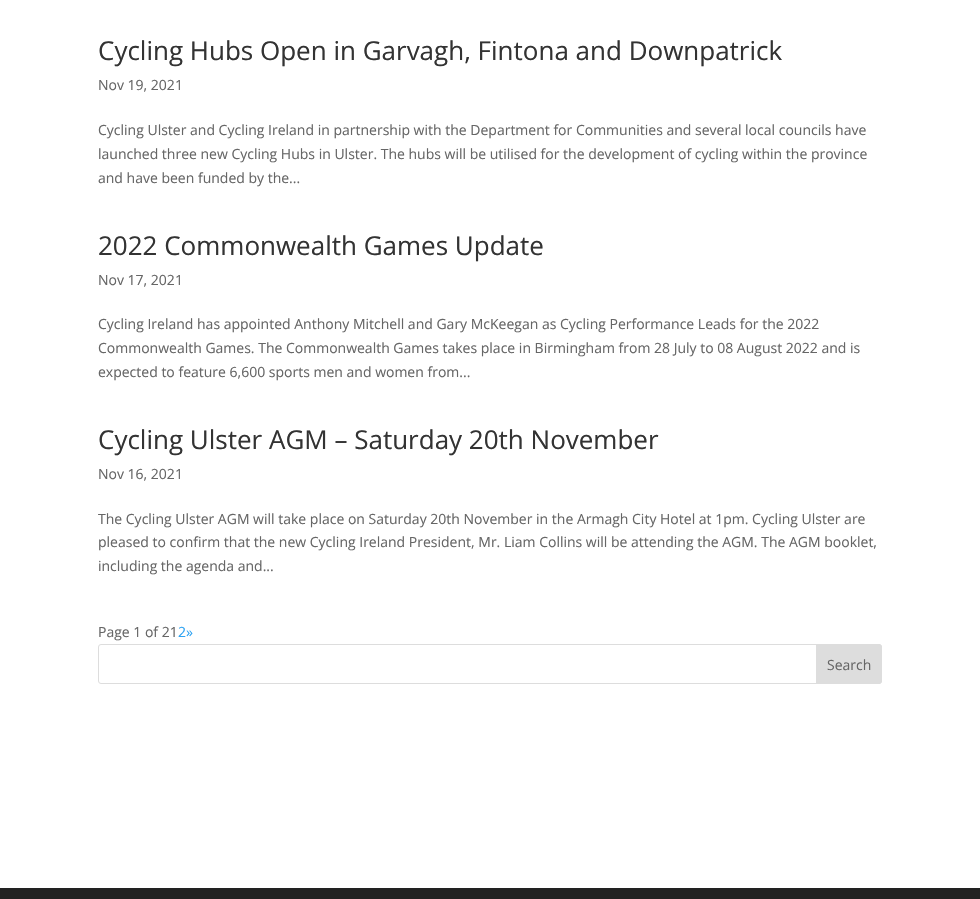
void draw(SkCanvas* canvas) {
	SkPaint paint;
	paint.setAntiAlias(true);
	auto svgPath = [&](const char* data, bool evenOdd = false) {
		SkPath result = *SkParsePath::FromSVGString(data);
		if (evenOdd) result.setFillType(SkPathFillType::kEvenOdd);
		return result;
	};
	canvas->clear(0xffffffff);
	SkFont f1(fontMgr->matchFamilyStyle("Open Sans", SkFontStyle::Normal()), 26);
	f1.setSubpixel(true);
	paint.setColor(0xff333333);
	canvas->drawString("Cycling Hubs Open in Garvagh, Fintona and Downpatrick", 98, 60, f1, paint);
	SkFont f2(fontMgr->matchFamilyStyle("Open Sans", SkFontStyle::Normal()), 14);
	f2.setSubpixel(true);
	paint.setColor(0xff666666);
	canvas->drawString("Nov 19, 2021", 98, 90, f2, paint);
	canvas->drawString("Cycling Ulster and Cycling Ireland in partnership with the Department for Communities and several local councils have", 98, 135, f2, paint);
	canvas->drawString("launched three new Cycling Hubs in Ulster. The hubs will be utilised for the development of cycling within the province", 98, 159, f2, paint);
	canvas->drawString("and have been funded by the...", 98, 183, f2, paint);
	paint.setColor(0xff333333);
	canvas->drawString("2022 Commonwealth Games Update", 98, 255, f1, paint);
	paint.setColor(0xff666666);
	canvas->drawString("Nov 17, 2021", 98, 285, f2, paint);
	canvas->drawString("Cycling Ireland has appointed Anthony Mitchell and Gary McKeegan as Cycling Performance Leads for the 2022", 98, 329, f2, paint);
	canvas->drawString("Commonwealth Games. The Commonwealth Games takes place in Birmingham from 28 July to 08 August 2022 and is", 98, 353, f2, paint);
	canvas->drawString("expected to feature 6,600 sports men and women from...", 98, 377, f2, paint);
	paint.setColor(0xff333333);
	canvas->drawString("Cycling Ulster AGM – Saturday 20th November", 98, 449, f1, paint);
	paint.setColor(0xff666666);
	canvas->drawString("Nov 16, 2021", 98, 479, f2, paint);
	canvas->drawString("The Cycling Ulster AGM will take place on Saturday 20th November in the Armagh City Hotel at 1pm. Cycling Ulster are", 98, 524, f2, paint);
	canvas->drawString("pleased to confirm that the new Cycling Ireland President, Mr. Liam Collins will be attending the AGM. The AGM booklet,", 98, 547, f2, paint);
	canvas->drawString("including the agenda and...", 98, 571, f2, paint);
	canvas->drawString("Page 1 of 21", 98, 637, f2, paint);
	paint.setColor(0xff2ea3f2);
	canvas->drawString("2»", 178, 637, f2, paint);
	paint.setStroke(true);
	paint.setStrokeWidth(1);
	paint.setColor(0xffdddddd);
	canvas->drawRoundRect(SkRect::MakeXYWH(98.5, 644.5, 783, 39), 2.5, 2.5, paint);
	paint.setStroke(false);
	canvas->drawPath(svgPath("M816.5 644.5H879C880.5 644.5 881.5 645.5 881.5 647V681C881.5 682.5 880.5 683.5 879 683.5H816.5Z"), paint);
	paint.setStroke(true);
	canvas->drawPath(svgPath("M816.5 644.5H879C880.5 644.5 881.5 645.5 881.5 647V681C881.5 682.5 880.5 683.5 879 683.5H816.5Z"), paint);
	paint.setStroke(false);
	paint.setColor(0xff666666);
	canvas->drawString("Search", 827, 670, f2, paint);
	paint.setColor(0xff222222);
	canvas->drawRect(SkRect::MakeXYWH(0, 888, 980, 11), paint);
}
